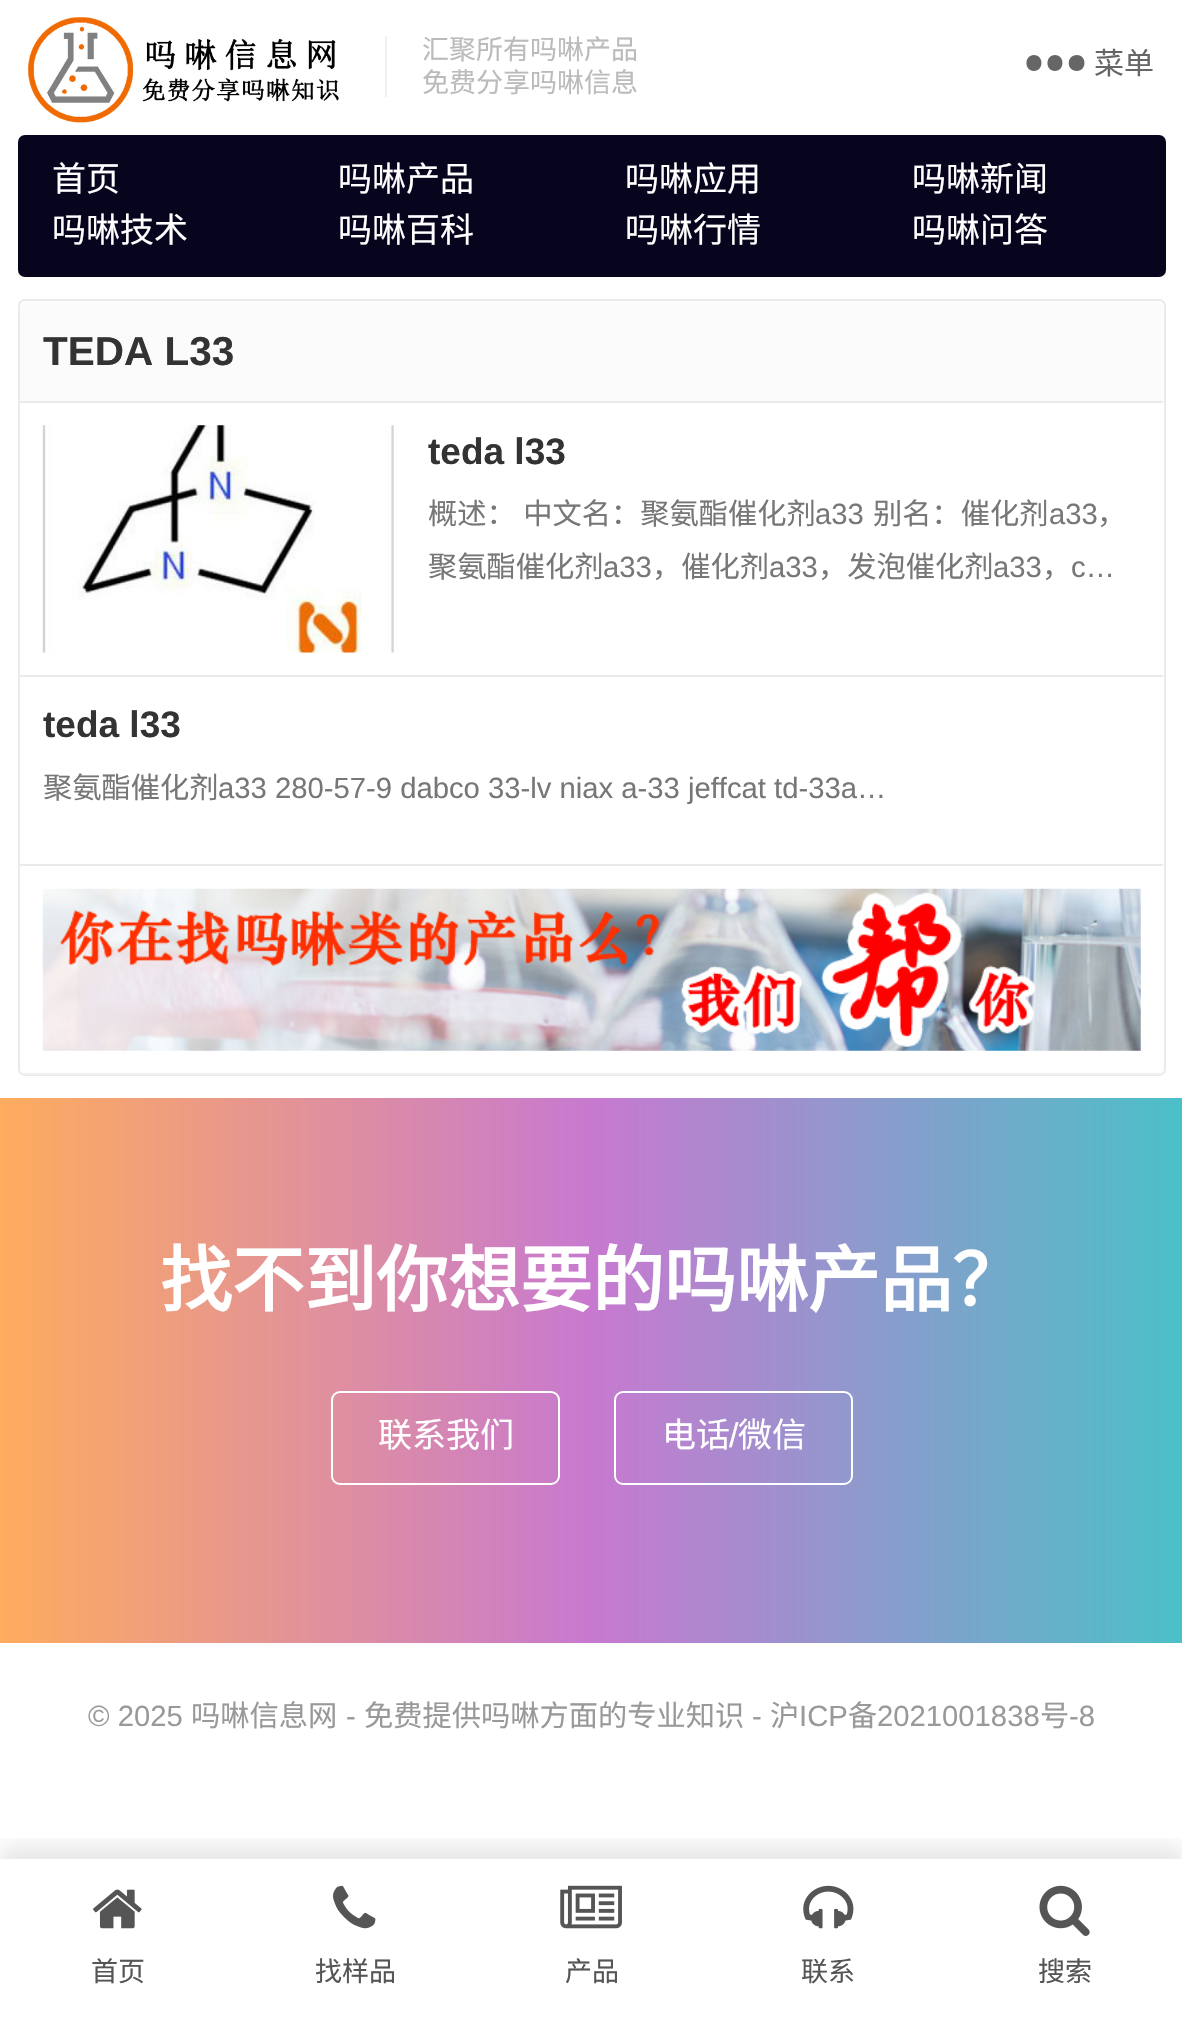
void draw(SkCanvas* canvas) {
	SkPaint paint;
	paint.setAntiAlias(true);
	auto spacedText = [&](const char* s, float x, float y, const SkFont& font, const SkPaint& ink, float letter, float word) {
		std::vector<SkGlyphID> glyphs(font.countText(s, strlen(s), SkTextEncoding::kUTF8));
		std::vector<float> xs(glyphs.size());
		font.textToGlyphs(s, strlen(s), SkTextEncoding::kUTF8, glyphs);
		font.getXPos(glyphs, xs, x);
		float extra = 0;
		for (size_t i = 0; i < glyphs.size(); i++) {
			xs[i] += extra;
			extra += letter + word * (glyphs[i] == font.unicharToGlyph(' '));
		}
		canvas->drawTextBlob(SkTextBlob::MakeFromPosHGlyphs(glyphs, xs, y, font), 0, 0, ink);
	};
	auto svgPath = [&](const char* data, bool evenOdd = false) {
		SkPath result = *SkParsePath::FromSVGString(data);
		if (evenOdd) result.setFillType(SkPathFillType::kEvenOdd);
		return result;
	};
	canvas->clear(0xffffffff);
	canvas->drawImageRect(SkImages::DeferredFromEncodedData(SkData::MakeFromFileName("img1.png")), SkRect::MakeXYWH(28, 17, 311, 106), SkSamplingOptions());
	paint.setColor(0xfff0f0f0);
	canvas->drawRect(SkRect::MakeXYWH(385, 36, 2, 61), paint);
	SkFont f1(fontMgr->matchFamilyStyle("Noto Sans CJK SC", SkFontStyle::Normal()), 27);
	f1.setSubpixel(true);
	paint.setColor(0xffbbbbbb);
	canvas->drawString("汇聚所有吗啉产品", 422, 59, f1, paint);
	canvas->drawString("免费分享吗啉信息", 422, 92, f1, paint);
	SkFont f2(fontMgr->matchFamilyStyle("Noto Sans CJK SC", SkFontStyle::Normal()), 30);
	f2.setSubpixel(true);
	paint.setColor(0xff666666);
	canvas->drawString("菜单", 1094, 74, f2, paint);
	canvas->drawPath(svgPath("M1034 71C1024 71 1024 55 1034 55C1044 55 1044 71 1034 71ZM1055 71C1045 71 1045 55 1055 55C1065 55 1065 71 1055 71ZM1077 71C1066 71 1066 55 1077 55C1087 55 1087 71 1077 71Z", true), paint);
	paint.setColor(0xff07041e);
	canvas->drawRoundRect(SkRect::MakeXYWH(18, 135, 1148, 142), 7, 7, paint);
	SkFont f3(fontMgr->matchFamilyStyle("Noto Sans CJK SC", SkFontStyle::Normal()), 34);
	f3.setSubpixel(true);
	paint.setColor(0xffffffff);
	canvas->drawString("首页", 52, 191, f3, paint);
	canvas->drawString("吗啉产品", 338, 191, f3, paint);
	canvas->drawString("吗啉应用", 625, 191, f3, paint);
	canvas->drawString("吗啉新闻", 912, 191, f3, paint);
	canvas->drawString("吗啉技术", 52, 242, f3, paint);
	canvas->drawString("吗啉百科", 338, 242, f3, paint);
	canvas->drawString("吗啉行情", 625, 242, f3, paint);
	canvas->drawString("吗啉问答", 912, 242, f3, paint);
	paint.setStroke(true);
	paint.setStrokeWidth(2);
	paint.setColor(0xffeaeaea);
	canvas->drawRoundRect(SkRect::MakeXYWH(19, 300, 1146, 775), 6, 6, paint);
	paint.setStroke(false);
	paint.setColor(0xfffbfbfb);
	canvas->drawPath(svgPath("M27 302H1156C1160 302 1163 305 1163 309V403H20V309C20 305 23 302 27 302Z"), paint);
	paint.setColor(0xffeaeaea);
	canvas->drawRect(SkRect::MakeXYWH(20, 401, 1143, 2), paint);
	SkFont f4(fontMgr->matchFamilyStyle("Liberation Sans", SkFontStyle::Bold()), 40.5);
	f4.setSubpixel(true);
	paint.setColor(0xff333333);
	canvas->drawString("TEDA L33", 43, 365, f4, paint);
	paint.setColor(0xffeaeaea);
	canvas->drawRect(SkRect::MakeXYWH(20, 675, 1143, 2), paint);
	canvas->drawImageRect(SkImages::DeferredFromEncodedData(SkData::MakeFromFileName("img2.png")), SkRect::MakeXYWH(42, 425, 352, 228), SkSamplingOptions());
	SkFont f5(fontMgr->matchFamilyStyle("Liberation Sans", SkFontStyle::Bold()), 37);
	f5.setSubpixel(true);
	paint.setColor(0xff333333);
	canvas->drawString("teda l33", 428, 464, f5, paint);
	SkFont f6(fontMgr->matchFamilyStyle("Noto Sans CJK SC", SkFontStyle::Normal()), 29.25);
	f6.setSubpixel(true);
	paint.setColor(0xff777777);
	spacedText("概述： 中文名：聚氨酯催化剂", 428, 524, f6, paint, 0, 1);
	SkFont f7(fontMgr->matchFamilyStyle("Liberation Sans", SkFontStyle::Normal()), 29.25);
	f7.setSubpixel(true);
	canvas->drawString("a33", 815, 524, f7, paint);
	canvas->drawString("别名：催化剂", 873, 524, f6, paint);
	canvas->drawString("a33", 1049, 524, f7, paint);
	canvas->drawString("，", 1097, 524, f6, paint);
	canvas->drawString("聚氨酯催化剂", 428, 577, f6, paint);
	canvas->drawString("a33", 603, 577, f7, paint);
	canvas->drawString("，催化剂", 652, 577, f6, paint);
	canvas->drawString("a33", 769, 577, f7, paint);
	canvas->drawString("，发泡催化剂", 818, 577, f6, paint);
	canvas->drawString("a33", 993, 577, f7, paint);
	canvas->drawString("，", 1042, 577, f6, paint);
	canvas->drawString("c…", 1071, 577, f7, paint);
	paint.setColor(0xffeaeaea);
	canvas->drawRect(SkRect::MakeXYWH(20, 864, 1143, 2), paint);
	paint.setColor(0xff333333);
	canvas->drawString("teda l33", 43, 737, f5, paint);
	paint.setColor(0xff777777);
	canvas->drawString("聚氨酯催化剂", 43, 798, f6, paint);
	canvas->drawString("a33 280-57-9 dabco 33-lv niax a-33 jeffcat td-33a…", 218, 798, f7, paint);
	paint.setColor(0xfff0f0f0);
	canvas->drawRect(SkRect::MakeXYWH(20, 1073, 1143, 2), paint);
	canvas->drawImageRect(SkImages::DeferredFromEncodedData(SkData::MakeFromFileName("img3.png")), SkRect::MakeXYWH(42, 888, 1099, 163), SkSamplingOptions());
	{
		const SkColor colors[] = {0xfffeac5e, 0xffc779d0, 0xff4bc0c8};
		const float stops[] = {0, 0.5, 1};
		const SkPoint ends[] = {{0, 1370}, {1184, 1370}};
		paint.setShader(SkGradientShader::MakeLinear(ends, colors, stops, 3, SkTileMode::kClamp));
		paint.setAlpha(255);
	}
	canvas->drawRect(SkRect::MakeXYWH(0, 1098, 1182, 545), paint);
	SkFont f8(fontMgr->matchFamilyStyle("Noto Sans CJK SC", SkFontStyle::Bold()), 72);
	f8.setSubpixel(true);
	paint.setShader(nullptr);
	paint.setColor(0xffffffff);
	canvas->drawString("找不到你想要的吗啉产品？", 160, 1306, f8, paint);
	paint.setStroke(true);
	canvas->drawRoundRect(SkRect::MakeXYWH(332, 1392, 227, 92), 8, 8, paint);
	paint.setStroke(false);
	canvas->drawString("联系我们", 378, 1447, f3, paint);
	paint.setStroke(true);
	canvas->drawRoundRect(SkRect::MakeXYWH(615, 1392, 237, 92), 8, 8, paint);
	paint.setStroke(false);
	canvas->drawString("电话", 662, 1447, f3, paint);
	SkFont f9(fontMgr->matchFamilyStyle("Liberation Sans", SkFontStyle::Normal()), 34);
	f9.setSubpixel(true);
	canvas->drawString("/", 729, 1447, f9, paint);
	canvas->drawString("微信", 738, 1447, f3, paint);
	paint.setColor(0xff999999);
	canvas->drawString("© 2025", 88, 1726, f7, paint);
	canvas->drawString("吗啉信息网", 191, 1726, f6, paint);
	canvas->drawString("-", 346, 1726, f7, paint);
	canvas->drawString("免费提供吗啉方面的专业知识", 364, 1726, f6, paint);
	canvas->drawString("-", 752, 1726, f7, paint);
	canvas->drawString("沪", 770, 1726, f6, paint);
	canvas->drawString("ICP", 799, 1726, f7, paint);
	canvas->drawString("备", 848, 1726, f6, paint);
	canvas->drawString("2021001838", 877, 1726, f7, paint);
	canvas->drawString("号", 1040, 1726, f6, paint);
	canvas->drawString("-8", 1069, 1726, f7, paint);
	canvas->save();
	canvas->clipRect(SkRect::MakeXYWH(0, 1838, 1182, 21));
	paint.setColor(0x1a000000);
	paint.setMaskFilter(SkMaskFilter::MakeBlur(kNormal_SkBlurStyle, 11));
	canvas->drawRect(SkRect::MakeXYWH(0, 1847, 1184, 167), paint);
	paint.setMaskFilter(nullptr);
	canvas->restore();
	canvas->drawImageRect(SkImages::DeferredFromEncodedData(SkData::MakeFromFileName("img4.png")), SkRect::MakeXYWH(93, 1889, 49, 40), SkSamplingOptions());
	paint.setColor(0xff555555);
	canvas->drawString("首页", 91, 1981, f1, paint);
	canvas->drawImageRect(SkImages::DeferredFromEncodedData(SkData::MakeFromFileName("img5.png")), SkRect::MakeXYWH(333, 1885, 43, 44), SkSamplingOptions());
	canvas->drawString("找样品", 315, 1981, f1, paint);
	canvas->drawImageRect(SkImages::DeferredFromEncodedData(SkData::MakeFromFileName("img6.png")), SkRect::MakeXYWH(560, 1885, 62, 44), SkSamplingOptions());
	canvas->drawString("产品", 565, 1981, f1, paint);
	canvas->drawImageRect(SkImages::DeferredFromEncodedData(SkData::MakeFromFileName("img7.png")), SkRect::MakeXYWH(803, 1885, 51, 44), SkSamplingOptions());
	canvas->drawString("联系", 801, 1981, f1, paint);
	canvas->drawImageRect(SkImages::DeferredFromEncodedData(SkData::MakeFromFileName("img8.png")), SkRect::MakeXYWH(1039, 1885, 51, 51), SkSamplingOptions());
	canvas->drawString("搜索", 1038, 1981, f1, paint);
}
